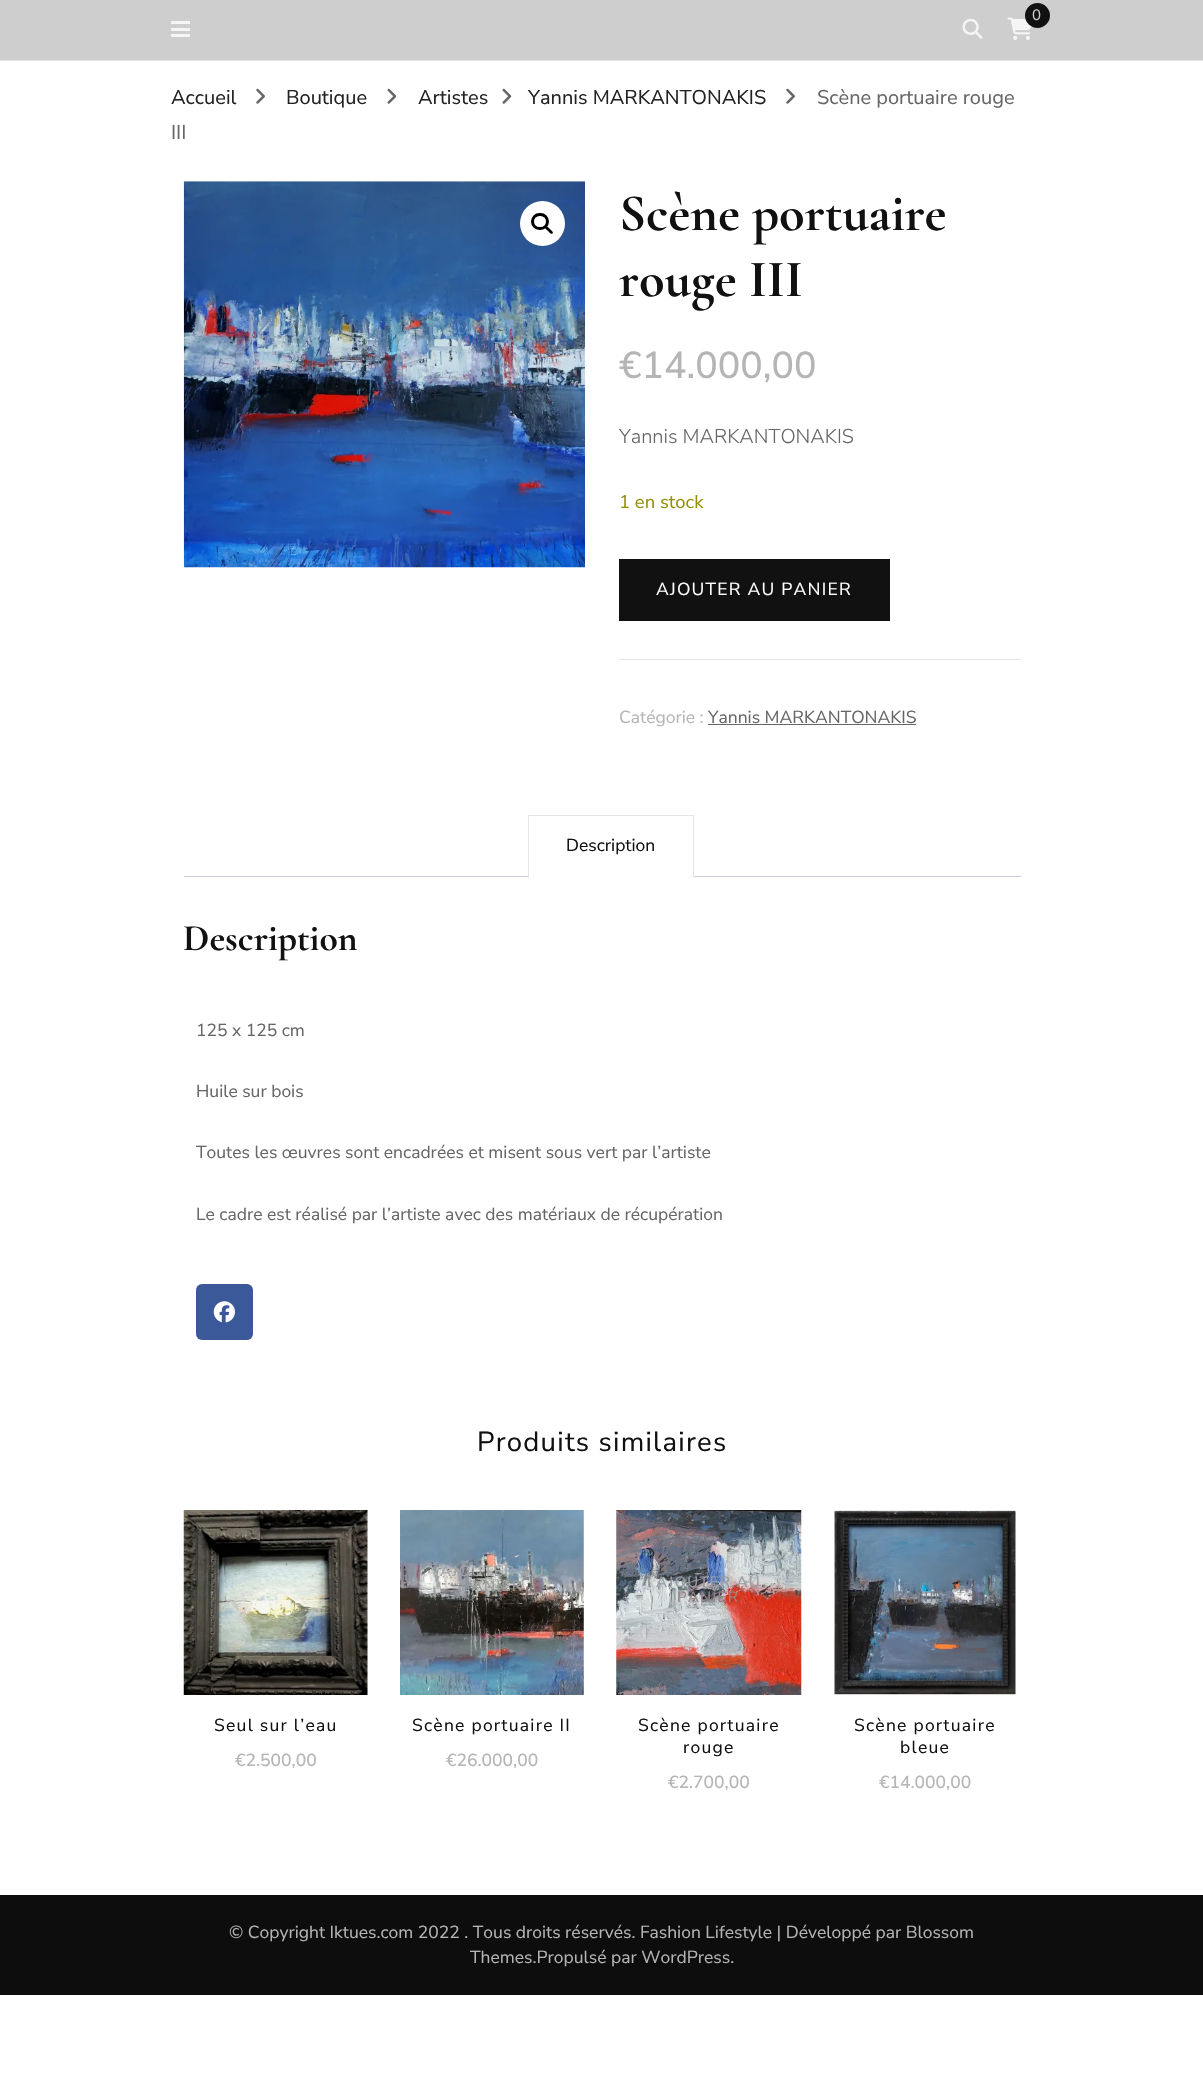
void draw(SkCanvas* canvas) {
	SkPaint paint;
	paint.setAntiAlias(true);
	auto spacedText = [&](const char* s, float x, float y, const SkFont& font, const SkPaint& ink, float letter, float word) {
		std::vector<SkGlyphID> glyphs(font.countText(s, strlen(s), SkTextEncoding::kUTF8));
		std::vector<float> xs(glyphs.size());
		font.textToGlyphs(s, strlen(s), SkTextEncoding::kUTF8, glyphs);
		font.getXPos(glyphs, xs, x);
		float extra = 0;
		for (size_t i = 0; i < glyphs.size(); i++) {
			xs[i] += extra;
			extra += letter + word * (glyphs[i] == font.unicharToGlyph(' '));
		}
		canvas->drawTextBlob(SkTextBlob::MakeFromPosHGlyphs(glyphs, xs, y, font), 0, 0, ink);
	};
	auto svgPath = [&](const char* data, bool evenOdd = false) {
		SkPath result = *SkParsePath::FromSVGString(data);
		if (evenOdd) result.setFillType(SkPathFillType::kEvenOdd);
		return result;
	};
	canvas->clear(0xffffffff);
	paint.setColor(0xffcecece);
	canvas->drawRect(SkRect::MakeXYWH(0, 0, 1203, 60), paint);
	canvas->drawImageRect(SkImages::DeferredFromEncodedData(SkData::MakeFromFileName("img1.png")), SkRect::MakeXYWH(1007, 17, 25, 23), SkSamplingOptions());
	paint.setColor(0xff111111);
	canvas->drawCircle(1037.5, 15.5, 12.5, paint);
	SkFont f1(fontMgr->matchFamilyStyle("Nunito Sans", SkFontStyle::Normal()), 15);
	f1.setSubpixel(true);
	paint.setColor(0xffcdcdcd);
	canvas->drawString("0", 1032, 20, f1, paint);
	canvas->drawImageRect(SkImages::DeferredFromEncodedData(SkData::MakeFromFileName("img2.png")), SkRect::MakeXYWH(962, 18, 21, 21), SkSamplingOptions());
	paint.setColor(0xfff5f5f5);
	canvas->drawRect(SkRect::MakeXYWH(171, 28, 19, 3), paint);
	canvas->drawRect(SkRect::MakeXYWH(171, 21, 19, 3), paint);
	canvas->drawRect(SkRect::MakeXYWH(171, 34, 19, 3), paint);
	paint.setColor(0xffe5e5e5);
	canvas->drawRect(SkRect::MakeXYWH(0, 60, 1203, 1), paint);
	SkFont f2(fontMgr->matchFamilyStyle("Nunito Sans", SkFontStyle::Normal()), 20);
	f2.setSubpixel(true);
	paint.setColor(0xff222222);
	canvas->drawString("Accueil", 171, 104, f2, paint);
	canvas->drawImageRect(SkImages::DeferredFromEncodedData(SkData::MakeFromFileName("img3.png")), SkRect::MakeXYWH(256, 88, 9, 16), SkSamplingOptions());
	canvas->drawString("Boutique", 286, 104, f2, paint);
	canvas->drawImageRect(SkImages::DeferredFromEncodedData(SkData::MakeFromFileName("img4.png")), SkRect::MakeXYWH(387, 88, 10, 16), SkSamplingOptions());
	canvas->drawString("Artistes", 418, 104, f2, paint);
	canvas->drawImageRect(SkImages::DeferredFromEncodedData(SkData::MakeFromFileName("img4.png")), SkRect::MakeXYWH(502, 88, 10, 16), SkSamplingOptions());
	canvas->drawString("Yannis MARKANTONAKIS", 528, 104, f2, paint);
	canvas->drawImageRect(SkImages::DeferredFromEncodedData(SkData::MakeFromFileName("img3.png")), SkRect::MakeXYWH(786, 88, 9, 16), SkSamplingOptions());
	paint.setColor(0xff666666);
	canvas->drawString("Scène portuaire rouge", 817, 104, f2, paint);
	canvas->drawString("III", 171, 139, f2, paint);
	canvas->drawImageRect(SkImages::DeferredFromEncodedData(SkData::MakeFromFileName("img5.png")), SkRect::MakeXYWH(183, 181, 402, 387), SkSamplingOptions());
	paint.setColor(0xffffffff);
	canvas->drawCircle(542.5, 223.5, 22.5, paint);
	paint.setStroke(true);
	paint.setStrokeWidth(3);
	paint.setColor(0xff000000);
	canvas->drawRoundRect(SkRect::MakeXYWH(532.5, 214.5, 15, 14), 7, 7, paint);
	paint.setStroke(false);
	canvas->drawPath(svgPath("M545.5 226.5C547 225 549 228.5 550 229C550.5 230 554 232 552.5 233.5C551 235 548.5 231.5 548 231C547 230 544 228 545.5 226.5Z"), paint);
	SkFont f3(fontMgr->matchFamilyStyle("Cormorant Garamond", SkFontStyle::Bold()), 52.5);
	f3.setSubpixel(true);
	paint.setColor(0xff111111);
	canvas->drawString("Scène portuaire", 619, 230, f3, paint);
	canvas->drawString("rouge III", 619, 296, f3, paint);
	SkFont f4(fontMgr->matchFamilyStyle("Nunito Sans", SkFontStyle(500, SkFontStyle::kNormal_Width, SkFontStyle::kUpright_Slant)), 37.5);
	f4.setSubpixel(true);
	paint.setColor(0xffb5b5b5);
	canvas->drawString("€14.000,00", 619, 378, f4, paint);
	SkFont f5(fontMgr->matchFamilyStyle("Nunito Sans", SkFontStyle(300, SkFontStyle::kNormal_Width, SkFontStyle::kUpright_Slant)), 20);
	f5.setSubpixel(true);
	paint.setColor(0xff666666);
	canvas->drawString("Yannis MARKANTONAKIS", 619, 443, f5, paint);
	SkFont f6(fontMgr->matchFamilyStyle("Nunito Sans", SkFontStyle::Normal()), 18.5);
	f6.setSubpixel(true);
	paint.setColor(0xff958e09);
	canvas->drawString("1 en stock", 619, 508, f6, paint);
	paint.setColor(0xffe5e5e5);
	canvas->drawRect(SkRect::MakeXYWH(619, 659, 402, 1), paint);
	paint.setColor(0xff111111);
	canvas->drawRect(SkRect::MakeXYWH(619, 559, 271, 62), paint);
	SkFont f7(fontMgr->matchFamilyStyle("Nunito Sans", SkFontStyle::Normal()), 17.5);
	f7.setSubpixel(true);
	paint.setColor(0xffffffff);
	spacedText("AJOUTER AU PANIER", 656, 595, f7, paint, 1.25, 0);
	paint.setColor(0xffb5b5b5);
	canvas->drawString("Catégorie :", 619, 723, f7, paint);
	paint.setColor(0xff666666);
	canvas->drawString("Yannis MARKANTONAKIS", 708, 723, f7, paint);
	canvas->drawRect(SkRect::MakeXYWH(708, 724, 208, 1), paint);
	paint.setColor(0xffcfc8d8);
	canvas->drawRect(SkRect::MakeXYWH(184, 876, 837, 1), paint);
	paint.setColor(0xffffffff);
	canvas->drawRect(SkRect::MakeXYWH(529, 876, 164, 1), paint);
	paint.setColor(0xffe5e5e5);
	canvas->drawRect(SkRect::MakeXYWH(528, 815, 166, 1), paint);
	canvas->drawRect(SkRect::MakeXYWH(693, 815, 1, 63), paint);
	paint.setColor(0xffffffff);
	canvas->drawRect(SkRect::MakeXYWH(528, 876, 166, 1), paint);
	paint.setColor(0xffe5e5e5);
	canvas->drawRect(SkRect::MakeXYWH(528, 815, 1, 63), paint);
	paint.setColor(0xff111111);
	canvas->drawString("Description", 566, 851, f7, paint);
	SkFont f8(fontMgr->matchFamilyStyle("Cormorant Garamond", SkFontStyle::Bold()), 37.5);
	f8.setSubpixel(true);
	canvas->drawString("Description", 183, 950, f8, paint);
	paint.setColor(0xff666666);
	canvas->drawString("125 x 125 cm", 196, 1036, f7, paint);
	canvas->drawString("Huile sur bois", 196, 1097, f7, paint);
	canvas->drawString("Toutes les œuvres sont encadrées et misent sous vert par l’artiste", 196, 1158, f7, paint);
	canvas->drawString("Le cadre est réalisé par l’artiste avec des matériaux de récupération", 196, 1220, f7, paint);
	paint.setColor(0xff3b5998);
	canvas->drawRoundRect(SkRect::MakeXYWH(196, 1284, 57, 56), 6, 6, paint);
	canvas->drawImageRect(SkImages::DeferredFromEncodedData(SkData::MakeFromFileName("img6.png")), SkRect::MakeXYWH(213, 1301, 22, 22), SkSamplingOptions());
	SkFont f9(fontMgr->matchFamilyStyle("Nunito Sans", SkFontStyle::Normal()), 27.5);
	f9.setSubpixel(true);
	paint.setColor(0xff111111);
	spacedText("Produits similaires", 477, 1451, f9, paint, 1.25, 0);
	canvas->drawImageRect(SkImages::DeferredFromEncodedData(SkData::MakeFromFileName("img7.png")), SkRect::MakeXYWH(183, 1510, 185, 185), SkSamplingOptions());
	spacedText("Seul sur l’eau", 214, 1731, f7, paint, 1.25, 0);
	SkFont f10(fontMgr->matchFamilyStyle("Nunito Sans", SkFontStyle(500, SkFontStyle::kNormal_Width, SkFontStyle::kUpright_Slant)), 17.5);
	f10.setSubpixel(true);
	paint.setColor(0xffb5b5b5);
	canvas->drawString("€2.500,00", 235, 1766, f10, paint);
	canvas->drawImageRect(SkImages::DeferredFromEncodedData(SkData::MakeFromFileName("img8.png")), SkRect::MakeXYWH(400, 1510, 184, 185), SkSamplingOptions());
	SkFont f11(fontMgr->matchFamilyStyle("Nunito Sans", SkFontStyle(500, SkFontStyle::kNormal_Width, SkFontStyle::kUpright_Slant)), 15);
	f11.setSubpixel(true);
	paint.setColor(0xff9ea4a7);
	spacedText("AJOUTER AU", 440, 1576, f11, paint, 1.25, 0);
	paint.setColor(0xff999c9a);
	spacedText("PANIER", 461, 1591, f11, paint, 1.25, 0);
	paint.setColor(0xff111111);
	spacedText("Scène portuaire II", 412, 1731, f7, paint, 1.25, 0);
	paint.setColor(0xffb5b5b5);
	canvas->drawString("€26.000,00", 446, 1766, f10, paint);
	canvas->drawImageRect(SkImages::DeferredFromEncodedData(SkData::MakeFromFileName("img9.png")), SkRect::MakeXYWH(616, 1510, 186, 185), SkSamplingOptions());
	paint.setColor(0xff979ba4);
	spacedText("AJOUTER AU", 656, 1587, f11, paint, 1.25, 0);
	paint.setColor(0xff9a8081);
	spacedText("PANIER", 677, 1602, f11, paint, 1.25, 0);
	paint.setColor(0xff111111);
	spacedText("Scène portuaire", 638, 1731, f7, paint, 1.25, 0);
	spacedText("rouge", 683, 1753, f7, paint, 1.25, 0);
	paint.setColor(0xffb5b5b5);
	canvas->drawString("€2.700,00", 668, 1788, f10, paint);
	canvas->drawImageRect(SkImages::DeferredFromEncodedData(SkData::MakeFromFileName("img10.png")), SkRect::MakeXYWH(833, 1510, 184, 185), SkSamplingOptions());
	paint.setColor(0xff7a828e);
	spacedText("PANIER", 894, 1602, f11, paint, 1.25, 0);
	paint.setColor(0xff111111);
	spacedText("Scène portuaire", 854, 1731, f7, paint, 1.25, 0);
	spacedText("bleue", 900, 1753, f7, paint, 1.25, 0);
	paint.setColor(0xffb5b5b5);
	canvas->drawString("€14.000,00", 879, 1788, f10, paint);
	paint.setColor(0xff0d0d0d);
	canvas->drawRect(SkRect::MakeXYWH(0, 1895, 1203, 100), paint);
	paint.setColor(0xffb5b5b5);
	canvas->drawString("© Copyright Iktues.com 2022 . Tous droits réservés. Fashion Lifestyle | Développé par Blossom", 229, 1938, f7, paint);
	canvas->drawString("Themes.Propulsé par WordPress.", 470, 1963, f7, paint);
}
